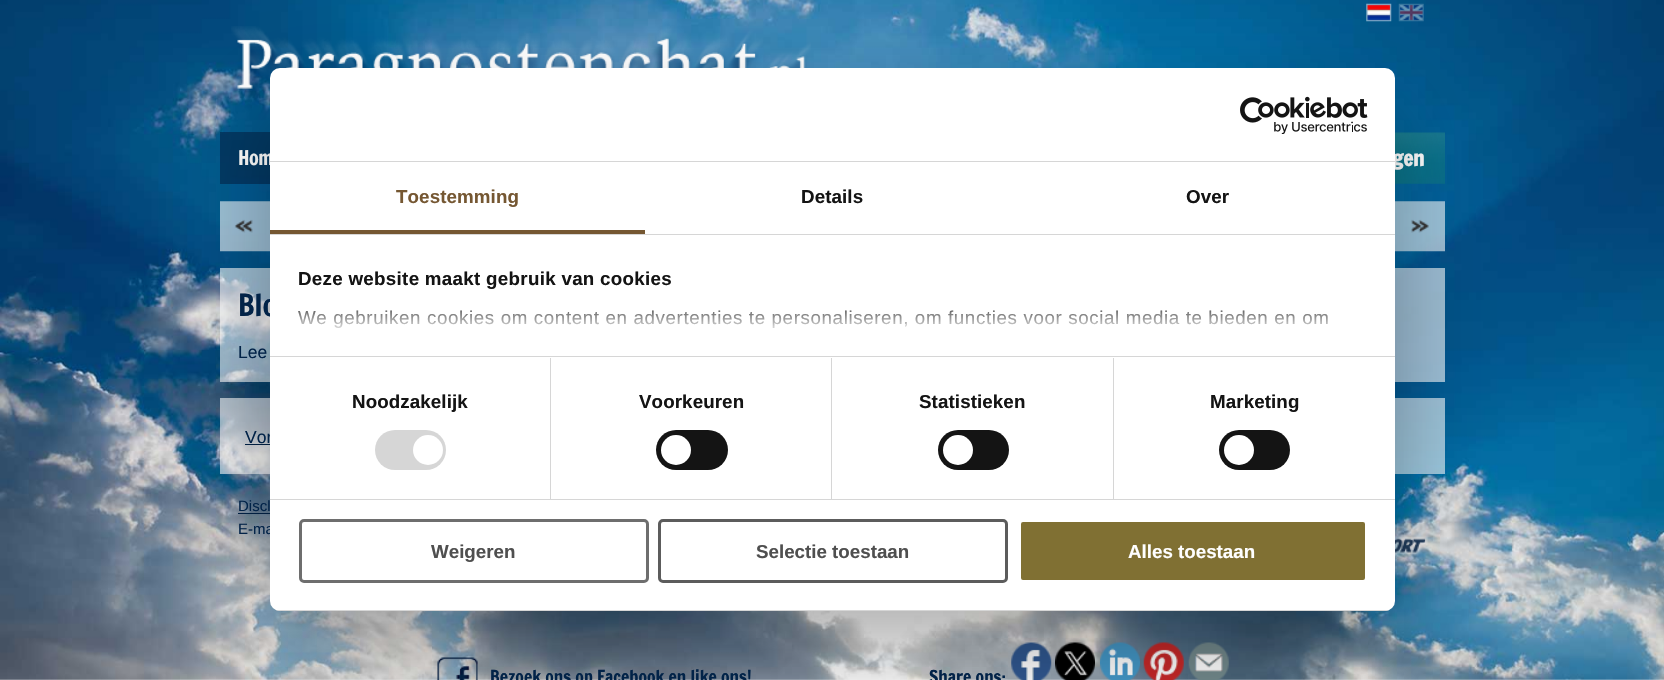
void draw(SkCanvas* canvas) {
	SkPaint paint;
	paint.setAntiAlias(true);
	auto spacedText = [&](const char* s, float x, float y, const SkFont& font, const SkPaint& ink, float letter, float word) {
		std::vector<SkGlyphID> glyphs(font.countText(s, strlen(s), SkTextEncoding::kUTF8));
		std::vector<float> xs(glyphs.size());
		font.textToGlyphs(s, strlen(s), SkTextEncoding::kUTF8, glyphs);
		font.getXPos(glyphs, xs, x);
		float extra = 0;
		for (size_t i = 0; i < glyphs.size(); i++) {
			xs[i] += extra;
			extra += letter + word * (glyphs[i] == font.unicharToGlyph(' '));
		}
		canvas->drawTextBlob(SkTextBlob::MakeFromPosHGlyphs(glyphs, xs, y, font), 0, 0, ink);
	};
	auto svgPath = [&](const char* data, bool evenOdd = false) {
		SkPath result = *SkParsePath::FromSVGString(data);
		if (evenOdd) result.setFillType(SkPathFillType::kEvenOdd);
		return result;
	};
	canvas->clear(0xffffffff);
	canvas->drawImageRect(SkImages::DeferredFromEncodedData(SkData::MakeFromFileName("img1.png")), SkRect::MakeXYWH(0, 0, 1664, 680), SkSamplingOptions());
	canvas->drawImageRect(SkImages::DeferredFromEncodedData(SkData::MakeFromFileName("img2.png")), SkRect::MakeXYWH(1366, 3, 26, 19), SkSamplingOptions());
	canvas->drawImageRect(SkImages::DeferredFromEncodedData(SkData::MakeFromFileName("img3.png")), SkRect::MakeXYWH(1398, 3, 26, 19), SkSamplingOptions());
	canvas->drawImageRect(SkImages::DeferredFromEncodedData(SkData::MakeFromFileName("img4.png")), SkRect::MakeXYWH(231, 26, 580, 77), SkSamplingOptions());
	paint.setColor(0x99022348);
	canvas->drawRect(SkRect::MakeXYWH(220, 132, 50, 52), paint);
	SkFont f1(fontMgr->matchFamilyStyle("Francois One", SkFontStyle::Normal()), 20);
	f1.setSubpixel(true);
	paint.setColor(0xffffffff);
	spacedText("Hom", 238, 165, f1, paint, -0.5, 0);
	canvas->drawImageRect(SkImages::DeferredFromEncodedData(SkData::MakeFromFileName("img5.png")), SkRect::MakeXYWH(1395, 132, 50, 52), SkSamplingOptions());
	SkFont f2(fontMgr->matchFamilyStyle("Francois One", SkFontStyle::Bold()), 21);
	f2.setSubpixel(true);
	canvas->drawString("gen", 1392, 166, f2, paint);
	canvas->drawImageRect(SkImages::DeferredFromEncodedData(SkData::MakeFromFileName("img7.png")), SkRect::MakeXYWH(220, 201, 50, 51), SkSamplingOptions());
	canvas->drawImageRect(SkImages::DeferredFromEncodedData(SkData::MakeFromFileName("img8.png")), SkRect::MakeXYWH(1395, 201, 50, 51), SkSamplingOptions());
	paint.setColor(0x99ffffff);
	canvas->drawRect(SkRect::MakeXYWH(220, 268, 1225, 114), paint);
	canvas->drawRect(SkRect::MakeXYWH(220, 398, 1225, 76), paint);
	paint.setColor(0xff022348);
	canvas->drawRect(SkRect::MakeXYWH(245, 444, 25, 1), paint);
	canvas->drawRect(SkRect::MakeXYWH(238, 513, 32, 1), paint);
	canvas->drawImageRect(SkImages::DeferredFromEncodedData(SkData::MakeFromFileName("img9.png")), SkRect::MakeXYWH(1395, 535, 33, 21), SkSamplingOptions());
	canvas->drawImageRect(SkImages::DeferredFromEncodedData(SkData::MakeFromFileName("img10.png")), SkRect::MakeXYWH(437, 657, 41, 23), SkSamplingOptions());
	canvas->drawImageRect(SkImages::DeferredFromEncodedData(SkData::MakeFromFileName("img11.png")), SkRect::MakeXYWH(1011, 642, 41, 38), SkSamplingOptions());
	canvas->drawImageRect(SkImages::DeferredFromEncodedData(SkData::MakeFromFileName("img12.png")), SkRect::MakeXYWH(1055, 642, 40, 38), SkSamplingOptions());
	canvas->drawImageRect(SkImages::DeferredFromEncodedData(SkData::MakeFromFileName("img13.png")), SkRect::MakeXYWH(1100, 642, 40, 38), SkSamplingOptions());
	canvas->drawImageRect(SkImages::DeferredFromEncodedData(SkData::MakeFromFileName("img14.png")), SkRect::MakeXYWH(1143, 642, 41, 38), SkSamplingOptions());
	canvas->drawImageRect(SkImages::DeferredFromEncodedData(SkData::MakeFromFileName("img15.png")), SkRect::MakeXYWH(1188, 642, 41, 38), SkSamplingOptions());
	paint.setColor(0x4d000000);
	paint.setMaskFilter(SkMaskFilter::MakeBlur(kNormal_SkBlurStyle, 42.5));
	canvas->drawRoundRect(SkRect::MakeXYWH(270, 108, 1125, 543), 10, 10, paint);
	paint.setMaskFilter(nullptr);
	SkFont f3(fontMgr->matchFamilyStyle("Francois One", SkFontStyle::Normal()), 30);
	f3.setSubpixel(true);
	paint.setColor(0xff022348);
	canvas->drawString("Blo", 238, 316, f3, paint);
	SkFont f4(fontMgr->matchFamilyStyle("Liberation Sans", SkFontStyle::Normal()), 17.5);
	f4.setSubpixel(true);
	canvas->drawString("Vor", 245, 443, f4, paint);
	SkFont f5(fontMgr->matchFamilyStyle("Liberation Sans", SkFontStyle::Normal()), 15);
	f5.setSubpixel(true);
	canvas->drawString("E-ma", 238, 534, f5, paint);
	paint.setColor(0xffffffff);
	canvas->drawRoundRect(SkRect::MakeXYWH(270, 68, 1125, 543), 10, 10, paint);
	paint.setColor(0xffd6d6d6);
	canvas->drawRect(SkRect::MakeXYWH(270, 161, 1125, 1), paint);
	canvas->drawImageRect(SkImages::DeferredFromEncodedData(SkData::MakeFromFileName("img6.png")), SkRect::MakeXYWH(1240, 96, 128, 38), SkSamplingOptions());
	canvas->drawRect(SkRect::MakeXYWH(270, 234, 1125, 1), paint);
	paint.setColor(0xff755732);
	canvas->drawRect(SkRect::MakeXYWH(270, 230, 375, 4), paint);
	SkFont f6(fontMgr->matchFamilyStyle("Liberation Sans", SkFontStyle::Bold()), 18.75);
	f6.setSubpixel(true);
	spacedText("Toestemming", 396, 203, f6, paint, 0.1, 0);
	paint.setColor(0xff141414);
	spacedText("Details", 801, 203, f6, paint, 0.1, 0);
	spacedText("Over", 1186, 203, f6, paint, 0.1, 0);
	paint.setColor(0xffd6d6d6);
	canvas->drawRect(SkRect::MakeXYWH(270, 356, 1125, 1), paint);
	paint.setColor(0xff141414);
	spacedText("Deze website maakt gebruik van cookies", 298, 285, f6, paint, 0.3, 0);
	SkFont f7(fontMgr->matchFamilyStyle("Liberation Sans", SkFontStyle::Normal()), 18.75);
	f7.setSubpixel(true);
	spacedText("We gebruiken cookies om content en advertenties te personaliseren, om functies voor social media te bieden en om", 298, 324, f7, paint, 0.62, 0);
	{
		const SkColor colors[] = {0xffffffff, 0xccffffff, 0x00ffffff};
		const float stops[] = {0, 0.5, 1};
		const SkPoint ends[] = {{820, 357}, {820, 297}};
		paint.setShader(SkGradientShader::MakeLinear(ends, colors, stops, 3, SkTileMode::kClamp));
		paint.setAlpha(255);
	}
	canvas->drawRect(SkRect::MakeXYWH(298, 310, 1031, 18), paint);
	paint.setShader(nullptr);
	paint.setColor(0xffd6d6d6);
	canvas->drawRect(SkRect::MakeXYWH(270, 499, 1125, 1), paint);
	canvas->drawRect(SkRect::MakeXYWH(550, 358, 1, 141), paint);
	paint.setColor(0xff141414);
	spacedText("Noodzakelijk", 352, 408, f6, paint, 0.1, 0);
	paint.setColor(0xffd6d6d6);
	canvas->drawRoundRect(SkRect::MakeXYWH(375, 430, 71, 40), 20, 20, paint);
	paint.setColor(0xffffffff);
	canvas->drawCircle(428, 450, 15, paint);
	paint.setColor(0xffd6d6d6);
	canvas->drawRect(SkRect::MakeXYWH(831, 358, 1, 141), paint);
	paint.setColor(0xff141414);
	spacedText("Voorkeuren", 639, 408, f6, paint, 0.1, 0);
	canvas->drawRoundRect(SkRect::MakeXYWH(656, 430, 72, 40), 20, 20, paint);
	paint.setColor(0xffffffff);
	canvas->drawCircle(676, 450, 15, paint);
	paint.setColor(0xffd6d6d6);
	canvas->drawRect(SkRect::MakeXYWH(1113, 358, 1, 141), paint);
	paint.setColor(0xff141414);
	spacedText("Statistieken", 919, 408, f6, paint, 0.1, 0);
	canvas->drawRoundRect(SkRect::MakeXYWH(938, 430, 71, 40), 20, 20, paint);
	paint.setColor(0xffffffff);
	canvas->drawCircle(958, 450, 15, paint);
	paint.setColor(0xff141414);
	spacedText("Marketing", 1210, 408, f6, paint, 0.1, 0);
	canvas->drawRoundRect(SkRect::MakeXYWH(1219, 430, 71, 40), 20, 20, paint);
	paint.setColor(0xffffffff);
	canvas->drawCircle(1239, 450, 15, paint);
	canvas->save();
	canvas->clipPath(svgPath("M280 68H1385C1390.5 68 1395 72.5 1395 78V601C1395 606.5 1390.5 611 1385 611H280C274.5 611 270 606.5 270 601V78C270 72.5 274.5 68 280 68Z"), true);
	paint.setColor(0xffd6d6d6);
	canvas->drawRect(SkRect::MakeXYWH(270, 610, 1125, 1), paint);
	canvas->restore();
	paint.setStroke(true);
	paint.setStrokeWidth(3);
	paint.setColor(0xff6e6e6e);
	canvas->drawRoundRect(SkRect::MakeXYWH(300.5, 520.5, 347, 61), 3.5, 3.5, paint);
	paint.setStroke(false);
	paint.setColor(0xff4f4f4f);
	canvas->drawString("Weigeren", 431, 558, f6, paint);
	paint.setStroke(true);
	paint.setColor(0xff5c5c5c);
	canvas->drawRoundRect(SkRect::MakeXYWH(659.5, 520.5, 347, 61), 3.5, 3.5, paint);
	paint.setStroke(false);
	paint.setColor(0xff4f4f4f);
	canvas->drawString("Selectie toestaan", 756, 558, f6, paint);
	paint.setColor(0xff807033);
	canvas->drawRoundRect(SkRect::MakeXYWH(1019.5, 520.5, 347, 61), 3.5, 3.5, paint);
	paint.setStroke(true);
	paint.setColor(0xffffffff);
	canvas->drawRoundRect(SkRect::MakeXYWH(1019.5, 520.5, 347, 61), 3.5, 3.5, paint);
	paint.setStroke(false);
	canvas->drawString("Alles toestaan", 1128, 558, f6, paint);
	paint.setColor(0xff022348);
	canvas->drawString("Lee", 238, 358, f4, paint);
	canvas->drawString("Discl", 238, 511, f5, paint);
	SkFont f8(fontMgr->matchFamilyStyle("Francois One", SkFontStyle::Normal()), 17.5);
	f8.setSubpixel(true);
	canvas->drawString("Bezoek ons op Facebook en like ons!", 490, 683, f8, paint);
	canvas->drawString("Share ons:", 929, 683, f8, paint);
}
